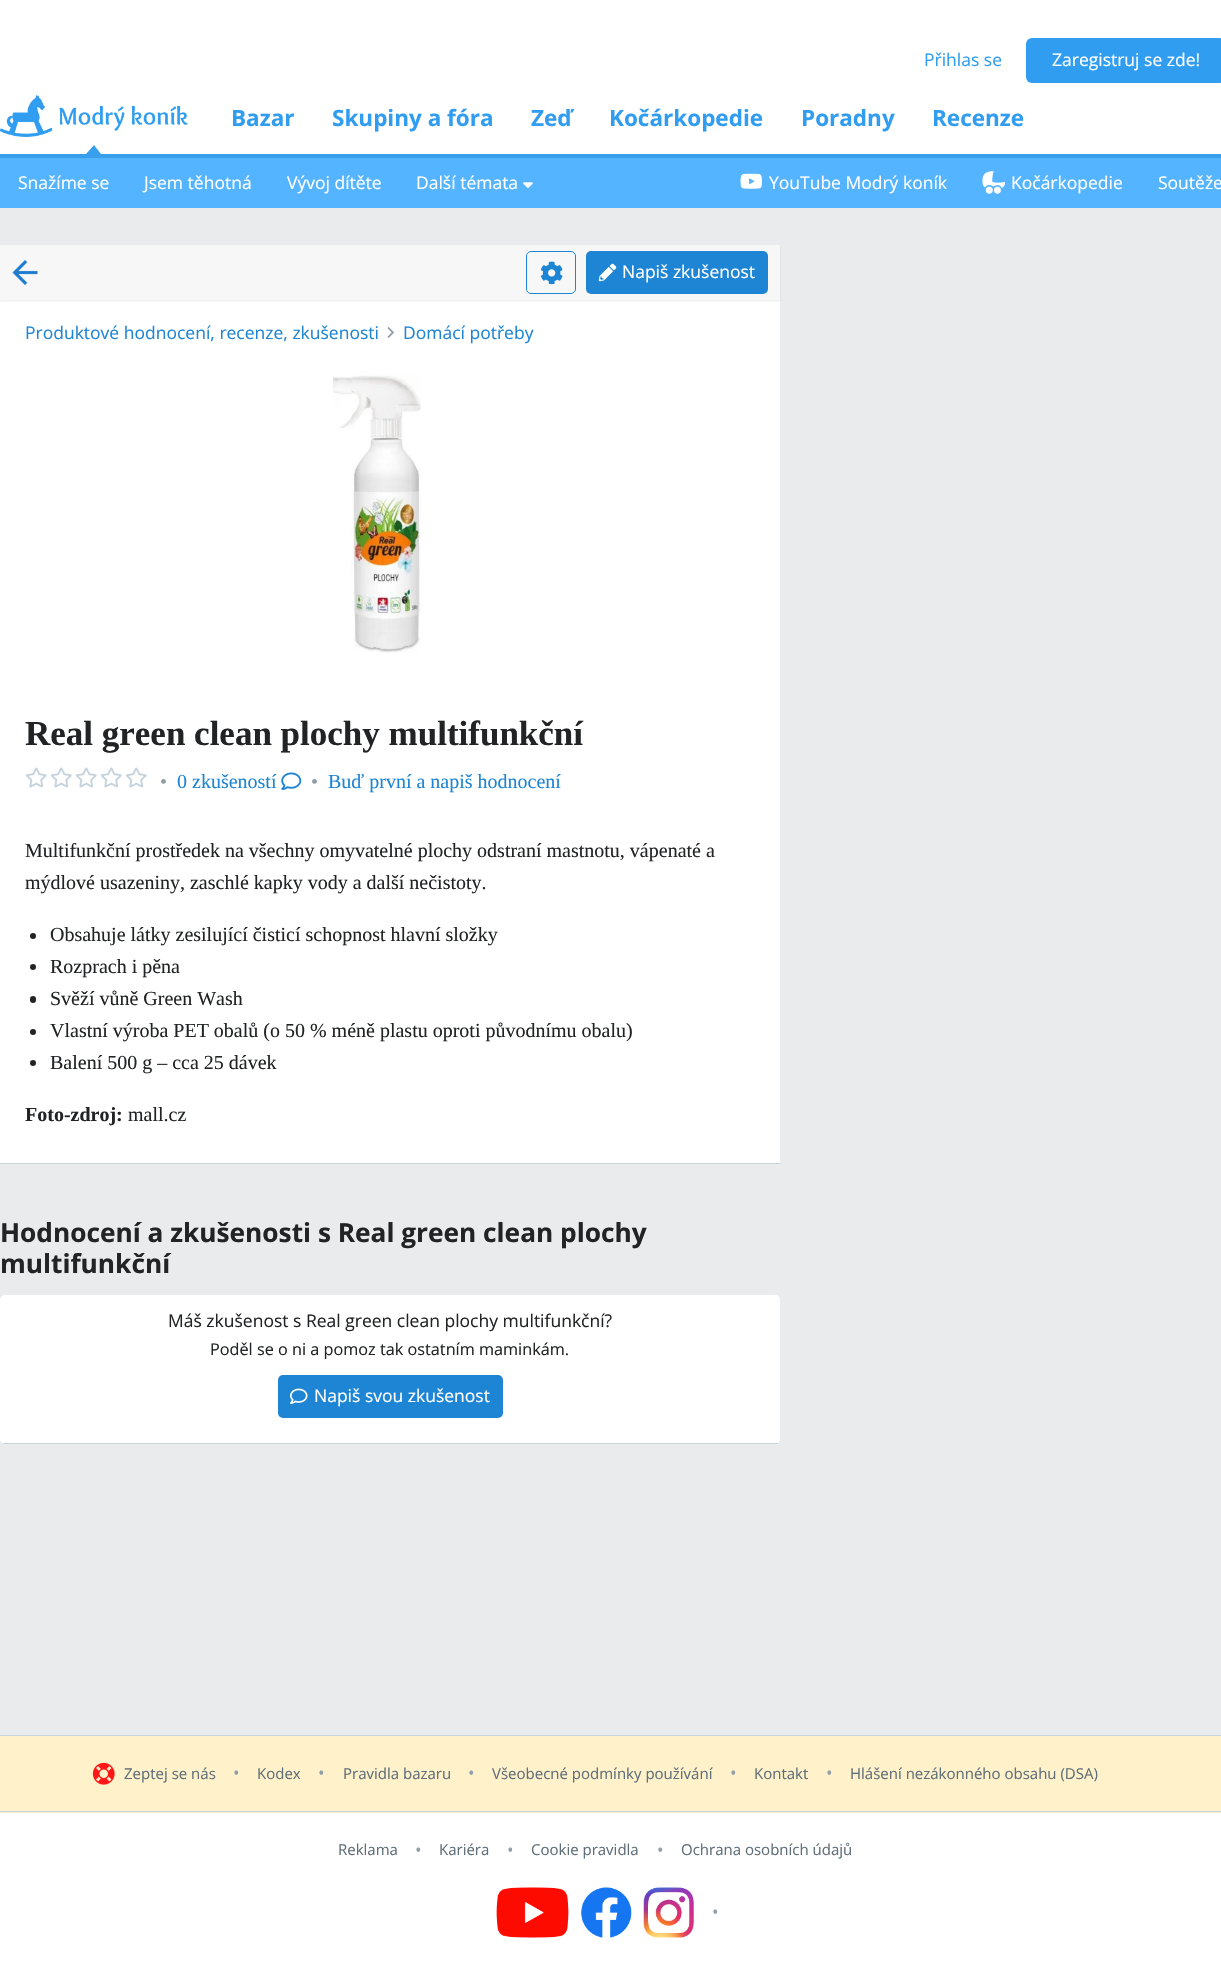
void draw(SkCanvas* canvas) {
	SkPaint paint;
	paint.setAntiAlias(true);
	auto svgPath = [&](const char* data, bool evenOdd = false) {
		SkPath result = *SkParsePath::FromSVGString(data);
		if (evenOdd) result.setFillType(SkPathFillType::kEvenOdd);
		return result;
	};
	canvas->clear(0xffeaebec);
	paint.setColor(0xffffffff);
	canvas->drawRect(SkRect::MakeXYWH(0, 0, 1221, 154), paint);
	paint.setColor(0xff389fed);
	canvas->drawRect(SkRect::MakeXYWH(0, 154, 1221, 4), paint);
	SkFont f1(fontMgr->matchFamilyStyle("Open Sans", SkFontStyle::Normal()), 17.5);
	f1.setSubpixel(true);
	paint.setColor(0xff309df0);
	canvas->drawString("Přihlas se", 924, 66, f1, paint);
	canvas->drawRoundRect(SkRect::MakeXYWH(1026, 38, 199, 45), 6, 6, paint);
	paint.setColor(0xffffffff);
	canvas->drawString("Zaregistruj se zde!", 1052, 66, f1, paint);
	canvas->drawImageRect(SkImages::DeferredFromEncodedData(SkData::MakeFromFileName("img1.png")), SkRect::MakeXYWH(0, 95, 188, 42), SkSamplingOptions());
	paint.setColor(0xff389fed);
	canvas->drawPath(svgPath("M101 154H86L94 145Z"), paint);
	SkFont f2(fontMgr->matchFamilyStyle("Open Sans", SkFontStyle::Bold()), 22.5);
	f2.setSubpixel(true);
	paint.setColor(0xff309df0);
	canvas->drawString("Bazar", 231, 126, f2, paint);
	canvas->drawString("Skupiny a fóra", 332, 126, f2, paint);
	canvas->drawString("Zeď", 531, 126, f2, paint);
	canvas->drawString("Kočárkopedie", 609, 126, f2, paint);
	canvas->drawString("Poradny", 801, 126, f2, paint);
	canvas->drawString("Recenze", 932, 126, f2, paint);
	paint.setColor(0xff54b4ff);
	canvas->drawRect(SkRect::MakeXYWH(0, 158, 1221, 50), paint);
	paint.setColor(0xffffffff);
	canvas->drawString("Snažíme se", 18, 189, f1, paint);
	canvas->drawString("Jsem těhotná", 144, 189, f1, paint);
	canvas->drawString("Vývoj dítěte", 287, 189, f1, paint);
	canvas->drawString("Další témata", 416, 189, f1, paint);
	canvas->drawImageRect(SkImages::DeferredFromEncodedData(SkData::MakeFromFileName("img2.png")), SkRect::MakeXYWH(523, 182, 10, 6), SkSamplingOptions());
	canvas->drawImageRect(SkImages::DeferredFromEncodedData(SkData::MakeFromFileName("img3.png")), SkRect::MakeXYWH(740, 173, 22, 16), SkSamplingOptions());
	canvas->drawString("YouTube Modrý koník", 769, 189, f1, paint);
	canvas->drawImageRect(SkImages::DeferredFromEncodedData(SkData::MakeFromFileName("img4.png")), SkRect::MakeXYWH(982, 171, 23, 23), SkSamplingOptions());
	canvas->drawString("Kočárkopedie", 1011, 189, f1, paint);
	canvas->drawString("Soutěže", 1158, 189, f1, paint);
	canvas->drawRect(SkRect::MakeXYWH(0, 300, 780, 863), paint);
	paint.setColor(0x1a212324);
	paint.setMaskFilter(SkMaskFilter::MakeBlur(kNormal_SkBlurStyle, 1));
	canvas->drawRect(SkRect::MakeXYWH(0, 246, 780, 55), paint);
	paint.setMaskFilter(nullptr);
	paint.setColor(0xfff7f7f7);
	canvas->drawRect(SkRect::MakeXYWH(0, 245, 780, 55), paint);
	canvas->drawImageRect(SkImages::DeferredFromEncodedData(SkData::MakeFromFileName("img5.png")), SkRect::MakeXYWH(12, 260, 26, 25), SkSamplingOptions());
	paint.setStroke(true);
	paint.setStrokeWidth(1);
	paint.setColor(0xff1e85d4);
	canvas->drawRoundRect(SkRect::MakeXYWH(526.5, 251.5, 49, 42), 4.5, 4.5, paint);
	canvas->drawImageRect(SkImages::DeferredFromEncodedData(SkData::MakeFromFileName("img6.png")), SkRect::MakeXYWH(540, 261, 23, 24), SkSamplingOptions());
	paint.setStroke(false);
	canvas->drawRoundRect(SkRect::MakeXYWH(586, 251, 182, 43), 5, 5, paint);
	canvas->drawImageRect(SkImages::DeferredFromEncodedData(SkData::MakeFromFileName("img7.png")), SkRect::MakeXYWH(598, 263, 19, 19), SkSamplingOptions());
	paint.setColor(0xffffffff);
	canvas->drawString("Napiš zkušenost", 622, 278, f1, paint);
	paint.setColor(0xffc6d3dd);
	canvas->drawRect(SkRect::MakeXYWH(0, 1163, 780, 1), paint);
	paint.setColor(0xff1e85d4);
	canvas->drawString("Produktové hodnocení, recenze, zkušenosti", 25, 339, f1, paint);
	canvas->drawImageRect(SkImages::DeferredFromEncodedData(SkData::MakeFromFileName("img8.png")), SkRect::MakeXYWH(387, 327, 7, 11), SkSamplingOptions());
	canvas->drawString("Domácí potřeby", 403, 339, f1, paint);
	canvas->drawImageRect(SkImages::DeferredFromEncodedData(SkData::MakeFromFileName("img9.png")), SkRect::MakeXYWH(332, 374, 90, 279), SkSamplingOptions());
	SkFont f3(fontMgr->matchFamilyStyle("Liberation Serif", SkFontStyle::Bold()), 35);
	f3.setSubpixel(true);
	paint.setColor(0xff212324);
	canvas->drawString("Real green clean plochy multifunkční", 25, 745, f3, paint);
	canvas->drawImageRect(SkImages::DeferredFromEncodedData(SkData::MakeFromFileName("img10.png")), SkRect::MakeXYWH(25, 767, 22, 21), SkSamplingOptions());
	canvas->drawImageRect(SkImages::DeferredFromEncodedData(SkData::MakeFromFileName("img10.png")), SkRect::MakeXYWH(50, 767, 22, 21), SkSamplingOptions());
	canvas->drawImageRect(SkImages::DeferredFromEncodedData(SkData::MakeFromFileName("img10.png")), SkRect::MakeXYWH(75, 767, 22, 21), SkSamplingOptions());
	canvas->drawImageRect(SkImages::DeferredFromEncodedData(SkData::MakeFromFileName("img10.png")), SkRect::MakeXYWH(100, 767, 22, 21), SkSamplingOptions());
	canvas->drawImageRect(SkImages::DeferredFromEncodedData(SkData::MakeFromFileName("img10.png")), SkRect::MakeXYWH(125, 767, 22, 21), SkSamplingOptions());
	SkFont f4(fontMgr->matchFamilyStyle("Liberation Serif", SkFontStyle::Normal()), 20);
	f4.setSubpixel(true);
	paint.setColor(0xff909ea8);
	canvas->drawString("•", 160, 788, f4, paint);
	paint.setColor(0xff1e85d4);
	canvas->drawString("0 zkušeností", 177, 788, f4, paint);
	canvas->drawImageRect(SkImages::DeferredFromEncodedData(SkData::MakeFromFileName("img11.png")), SkRect::MakeXYWH(281, 772, 21, 18), SkSamplingOptions());
	paint.setColor(0xff909ea8);
	canvas->drawString("•", 311, 788, f4, paint);
	paint.setColor(0xff1e85d4);
	canvas->drawString("Buď první a napiš hodnocení", 328, 788, f4, paint);
	paint.setColor(0xff212324);
	canvas->drawString("Multifunkční prostředek na všechny omyvatelné plochy odstraní mastnotu, vápenaté a", 25, 857, f4, paint);
	canvas->drawString("mýdlové usazeniny, zaschlé kapky vody a další nečistoty.", 25, 889, f4, paint);
	canvas->drawCircle(33, 936, 3, paint);
	canvas->drawString("Obsahuje látky zesilující čisticí schopnost hlavní složky", 50, 941, f4, paint);
	canvas->drawCircle(33, 967, 3, paint);
	canvas->drawString("Rozprach i pěna", 50, 973, f4, paint);
	canvas->drawRoundRect(SkRect::MakeXYWH(30, 996, 6, 7), 3, 3, paint);
	canvas->drawString("Svěží vůně Green Wash", 50, 1005, f4, paint);
	canvas->drawCircle(33, 1032, 3, paint);
	canvas->drawString("Vlastní výroba PET obalů (o 50 % méně plastu oproti původnímu obalu)", 50, 1037, f4, paint);
	canvas->drawCircle(33, 1063, 3, paint);
	canvas->drawString("Balení 500 g – cca 25 dávek", 50, 1069, f4, paint);
	SkFont f5(fontMgr->matchFamilyStyle("Liberation Serif", SkFontStyle::Bold()), 20);
	f5.setSubpixel(true);
	canvas->drawString("Foto-zdroj:", 25, 1121, f5, paint);
	canvas->drawString("mall.cz", 128, 1121, f4, paint);
	SkFont f6(fontMgr->matchFamilyStyle("Open Sans", SkFontStyle::Bold()), 26.25);
	f6.setSubpixel(true);
	canvas->drawString("Hodnocení a zkušenosti s Real green clean plochy", 0, 1242, f6, paint);
	canvas->drawString("multifunkční", 0, 1273, f6, paint);
	paint.setColor(0xffffffff);
	canvas->drawRoundRect(SkRect::MakeXYWH(0, 1295, 780, 149), 5, 5, paint);
	paint.setColor(0xffc6d3dd);
	canvas->drawRect(SkRect::MakeXYWH(3, 1443, 775, 1), paint);
	paint.setColor(0xff212324);
	canvas->drawString("Máš zkušenost s Real green clean plochy multifunkční?", 168, 1327, f1, paint);
	SkFont f7(fontMgr->matchFamilyStyle("Open Sans", SkFontStyle::Normal()), 16.25);
	f7.setSubpixel(true);
	canvas->drawString("Poděl se o ni a pomoz tak ostatním maminkám.", 210, 1355, f7, paint);
	paint.setColor(0xff1e85d4);
	canvas->drawRoundRect(SkRect::MakeXYWH(278, 1375, 225, 43), 5, 5, paint);
	canvas->drawImageRect(SkImages::DeferredFromEncodedData(SkData::MakeFromFileName("img12.png")), SkRect::MakeXYWH(290, 1388, 18, 16), SkSamplingOptions());
	paint.setColor(0xffffffff);
	canvas->drawString("Napiš svou zkušenost", 314, 1402, f1, paint);
	paint.setColor(0xfffff2cb);
	canvas->drawRect(SkRect::MakeXYWH(0, 1736, 1221, 77), paint);
	paint.setColor(0xffc6d3dd);
	canvas->drawRect(SkRect::MakeXYWH(0, 1735, 1221, 1), paint);
	canvas->drawRect(SkRect::MakeXYWH(0, 1811, 1221, 1), paint);
	canvas->drawImageRect(SkImages::DeferredFromEncodedData(SkData::MakeFromFileName("img13.png")), SkRect::MakeXYWH(92, 1762, 23, 23), SkSamplingOptions());
	SkFont f8(fontMgr->matchFamilyStyle("Open Sans", SkFontStyle::Normal()), 15);
	f8.setSubpixel(true);
	paint.setColor(0xff5f6e78);
	canvas->drawString("Zeptej se nás", 124, 1779, f8, paint);
	paint.setColor(0xff909ea8);
	canvas->drawString("•", 233, 1779, f1, paint);
	paint.setColor(0xff5f6e78);
	canvas->drawString("Kodex", 257, 1779, f8, paint);
	paint.setColor(0xff909ea8);
	canvas->drawString("•", 318, 1779, f1, paint);
	paint.setColor(0xff5f6e78);
	canvas->drawString("Pravidla bazaru", 343, 1779, f8, paint);
	paint.setColor(0xff909ea8);
	canvas->drawString("•", 468, 1779, f1, paint);
	paint.setColor(0xff5f6e78);
	canvas->drawString("Všeobecné podmínky používání", 492, 1779, f8, paint);
	paint.setColor(0xff909ea8);
	canvas->drawString("•", 730, 1779, f1, paint);
	paint.setColor(0xff5f6e78);
	canvas->drawString("Kontakt", 754, 1779, f8, paint);
	paint.setColor(0xff909ea8);
	canvas->drawString("•", 826, 1779, f1, paint);
	paint.setColor(0xff5f6e78);
	canvas->drawString("Hlášení nezákonného obsahu (DSA)", 850, 1779, f8, paint);
	paint.setColor(0xffffffff);
	canvas->drawRect(SkRect::MakeXYWH(0, 1813, 1221, 161), paint);
	paint.setColor(0xff5f6e78);
	canvas->drawString("Reklama", 338, 1855, f8, paint);
	paint.setColor(0xff909ea8);
	canvas->drawString("•", 415, 1856, f1, paint);
	paint.setColor(0xff5f6e78);
	canvas->drawString("Kariéra", 439, 1855, f8, paint);
	paint.setColor(0xff909ea8);
	canvas->drawString("•", 507, 1856, f1, paint);
	paint.setColor(0xff5f6e78);
	canvas->drawString("Cookie pravidla", 531, 1855, f8, paint);
	paint.setColor(0xff909ea8);
	canvas->drawString("•", 657, 1856, f1, paint);
	paint.setColor(0xff5f6e78);
	canvas->drawString("Ochrana osobních údajů", 681, 1855, f8, paint);
	canvas->drawImageRect(SkImages::DeferredFromEncodedData(SkData::MakeFromFileName("img14.png")), SkRect::MakeXYWH(496, 1887, 73, 51), SkSamplingOptions());
	canvas->drawImageRect(SkImages::DeferredFromEncodedData(SkData::MakeFromFileName("img15.png")), SkRect::MakeXYWH(581, 1887, 51, 51), SkSamplingOptions());
	canvas->drawImageRect(SkImages::DeferredFromEncodedData(SkData::MakeFromFileName("img16.png")), SkRect::MakeXYWH(643, 1887, 51, 51), SkSamplingOptions());
	paint.setColor(0xff909ea8);
	canvas->drawString("•", 712, 1918, f1, paint);
}
